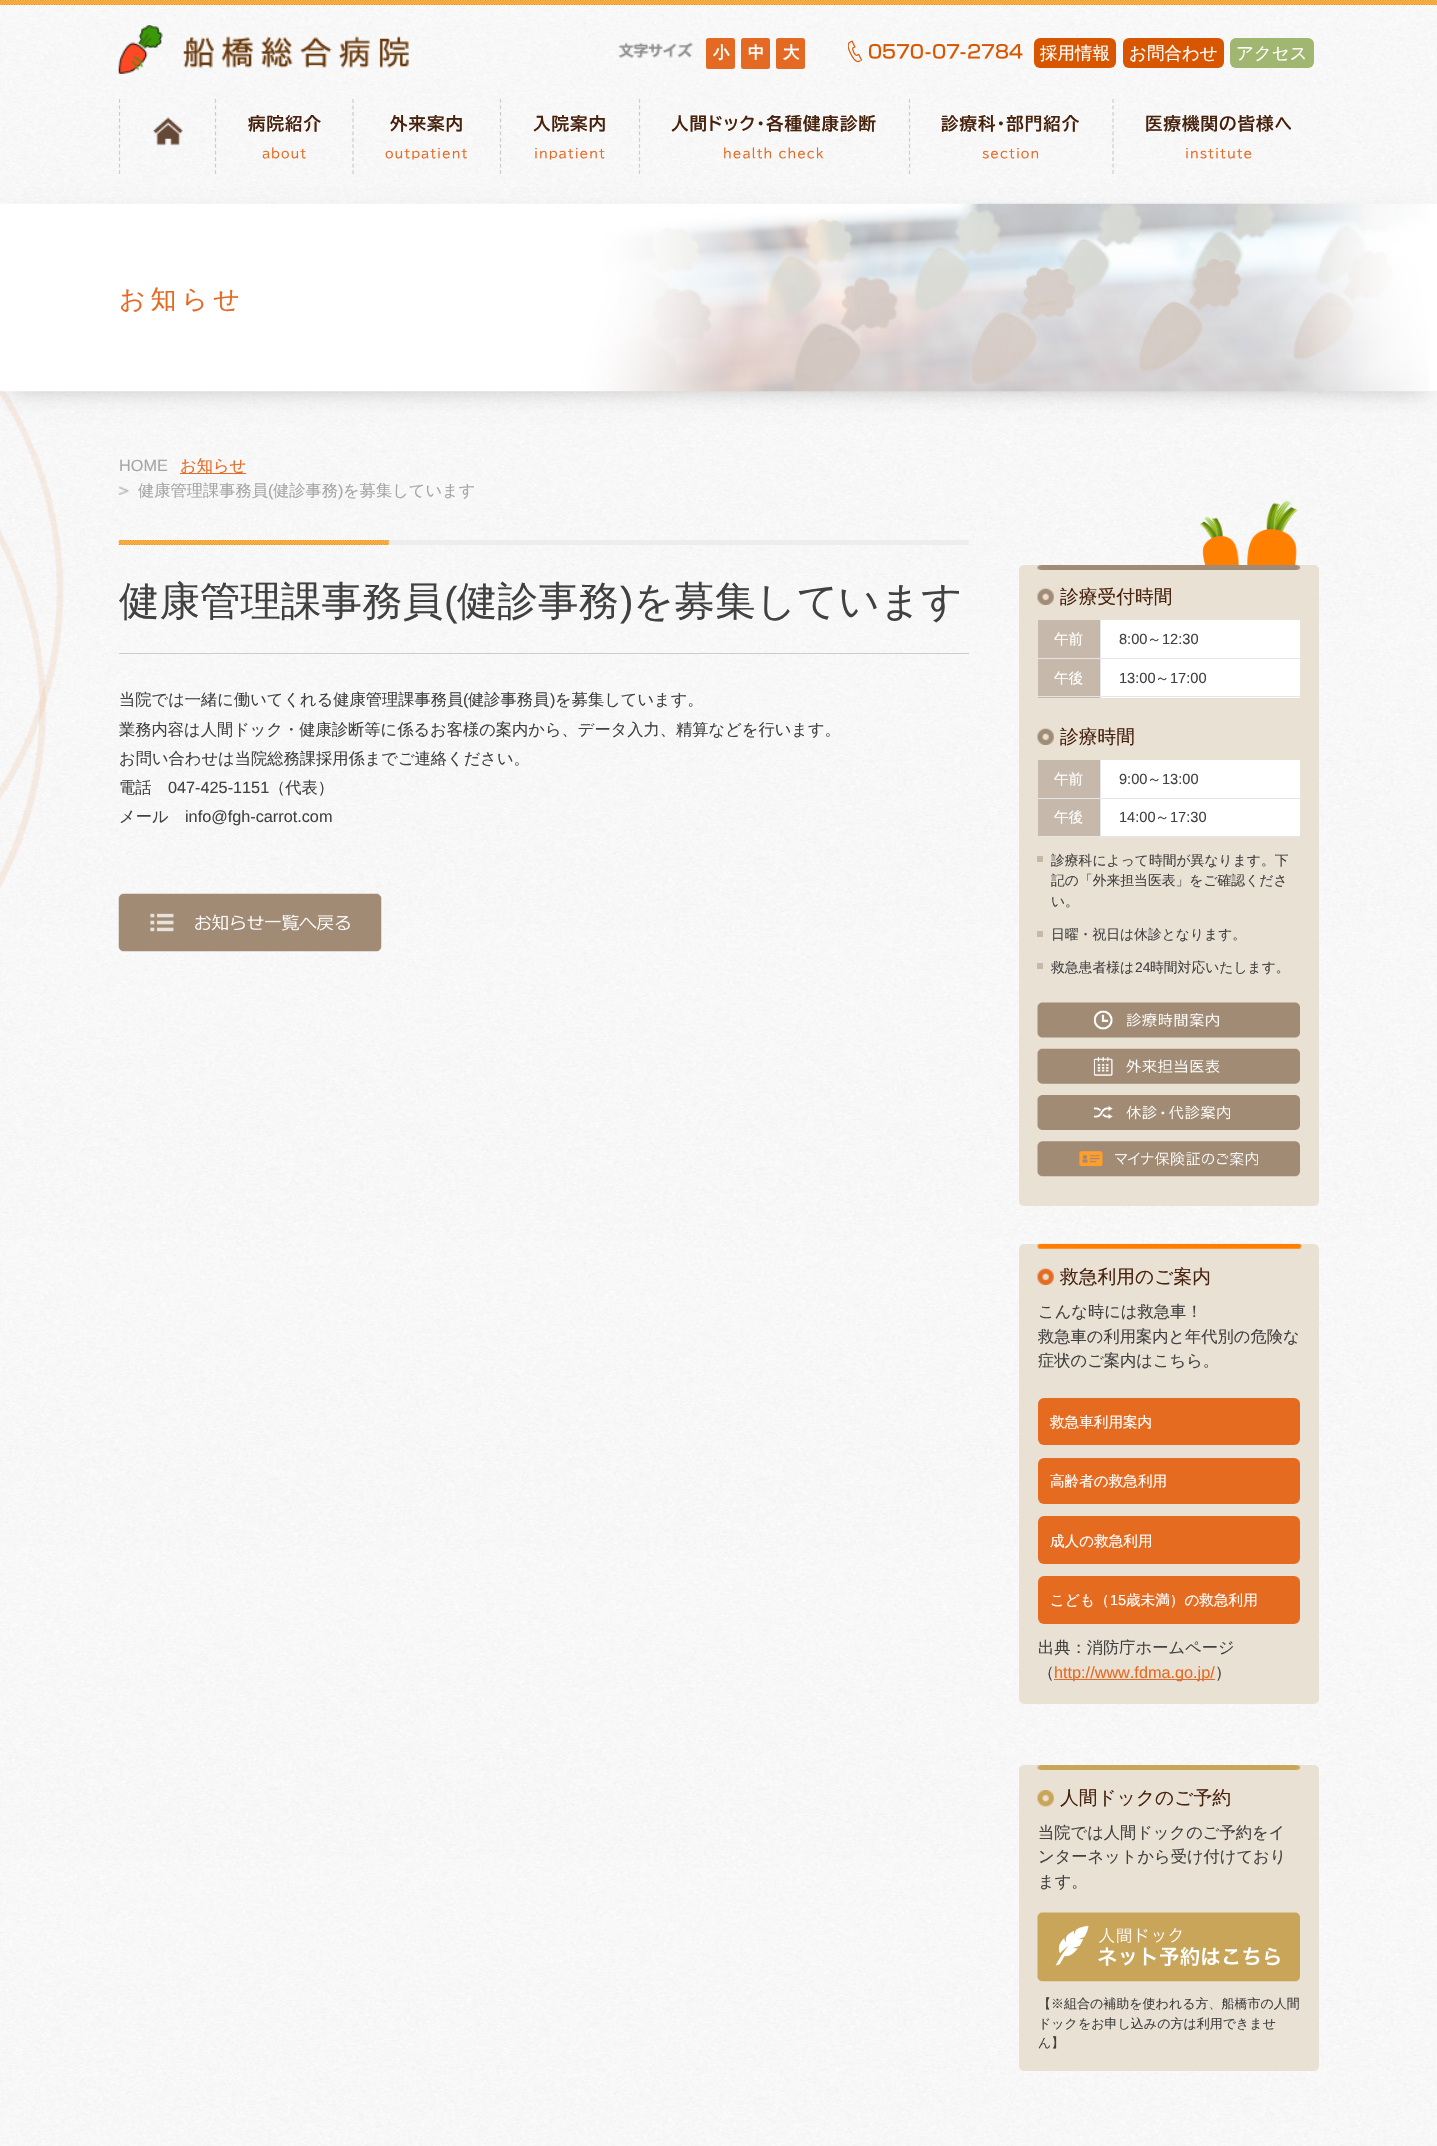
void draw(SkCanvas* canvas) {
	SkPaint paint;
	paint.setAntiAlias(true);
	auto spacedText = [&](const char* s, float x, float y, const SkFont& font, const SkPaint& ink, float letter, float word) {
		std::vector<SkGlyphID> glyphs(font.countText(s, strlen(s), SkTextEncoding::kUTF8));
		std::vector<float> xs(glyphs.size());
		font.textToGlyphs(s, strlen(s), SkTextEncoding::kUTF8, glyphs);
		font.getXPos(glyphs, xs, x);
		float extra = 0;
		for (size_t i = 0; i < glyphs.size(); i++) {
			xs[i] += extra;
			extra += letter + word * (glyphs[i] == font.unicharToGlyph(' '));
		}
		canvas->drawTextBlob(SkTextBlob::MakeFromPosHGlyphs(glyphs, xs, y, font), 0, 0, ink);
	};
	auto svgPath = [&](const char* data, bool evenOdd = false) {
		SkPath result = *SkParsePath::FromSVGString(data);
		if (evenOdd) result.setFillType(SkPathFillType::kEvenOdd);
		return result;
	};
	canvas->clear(0xffffffff);
	canvas->drawImageRect(SkImages::DeferredFromEncodedData(SkData::MakeFromFileName("img1.png")), SkRect::MakeXYWH(0, 5, 1437, 2141), SkSamplingOptions());
	canvas->drawImageRect(SkImages::DeferredFromEncodedData(SkData::MakeFromFileName("img2.png")), SkRect::MakeXYWH(0, 391, 64, 497), SkSamplingOptions());
	canvas->drawImageRect(SkImages::DeferredFromEncodedData(SkData::MakeFromFileName("img3.png")), SkRect::MakeXYWH(0, 0, 1437, 5), SkSamplingOptions());
	canvas->drawImageRect(SkImages::DeferredFromEncodedData(SkData::MakeFromFileName("img4.png")), SkRect::MakeXYWH(118, 25, 291, 49), SkSamplingOptions());
	canvas->drawImageRect(SkImages::DeferredFromEncodedData(SkData::MakeFromFileName("img5.png")), SkRect::MakeXYWH(618, 42, 75, 16), SkSamplingOptions());
	paint.setColor(0xffe46a24);
	canvas->drawRoundRect(SkRect::MakeXYWH(706, 38, 29, 31), 2.5, 2.5, paint);
	SkFont f1(fontMgr->matchFamilyStyle("WenQuanYi Zen Hei", SkFontStyle::Bold()), 16.25);
	f1.setSubpixel(true);
	paint.setColor(0xffffffff);
	canvas->drawString("小", 713, 58, f1, paint);
	paint.setColor(0xffe46a24);
	canvas->drawRoundRect(SkRect::MakeXYWH(741, 38, 29, 31), 2.5, 2.5, paint);
	paint.setColor(0xffffffff);
	canvas->drawString("中", 748, 58, f1, paint);
	paint.setColor(0xffe46a24);
	canvas->drawRoundRect(SkRect::MakeXYWH(776, 38, 29, 31), 2.5, 2.5, paint);
	paint.setColor(0xffffffff);
	canvas->drawString("大", 783, 58, f1, paint);
	canvas->drawImageRect(SkImages::DeferredFromEncodedData(SkData::MakeFromFileName("img6.png")), SkRect::MakeXYWH(848, 40, 175, 23), SkSamplingOptions());
	paint.setColor(0xffd95600);
	canvas->drawRoundRect(SkRect::MakeXYWH(1034, 38, 82, 30), 6, 6, paint);
	SkFont f2(fontMgr->matchFamilyStyle("WenQuanYi Zen Hei", SkFontStyle(500, SkFontStyle::kNormal_Width, SkFontStyle::kUpright_Slant)), 17.5);
	f2.setSubpixel(true);
	paint.setColor(0xffffffff);
	canvas->drawString("採用情報", 1040, 59, f2, paint);
	paint.setColor(0xffd95600);
	canvas->drawRoundRect(SkRect::MakeXYWH(1123, 38, 101, 30), 6, 6, paint);
	paint.setColor(0xffffffff);
	canvas->drawString("お問合わせ", 1129, 59, f2, paint);
	paint.setColor(0xffa1b670);
	canvas->drawRoundRect(SkRect::MakeXYWH(1230, 38, 84, 30), 6, 6, paint);
	paint.setColor(0xffffffff);
	canvas->drawString("アクセス", 1236, 59, f2, paint);
	canvas->drawImageRect(SkImages::DeferredFromEncodedData(SkData::MakeFromFileName("img7.png")), SkRect::MakeXYWH(153, 117, 30, 29), SkSamplingOptions());
	paint.setStroke(true);
	paint.setStrokeWidth(1.2);
	paint.setColor(0xffcccccc);
	paint.setPathEffect(SkDashPathEffect::Make({{3.75f, 2.73f}}, 0));
	canvas->drawPath(svgPath("M119.5 99V174"), paint);
	paint.setPathEffect(nullptr);
	paint.setPathEffect(SkDashPathEffect::Make({{3.75f, 2.73f}}, 0));
	canvas->drawPath(svgPath("M215.5 99V174"), paint);
	paint.setPathEffect(nullptr);
	SkFont f3(fontMgr->matchFamilyStyle("BIZ UDPGothic", SkFontStyle::Bold()), 17.5);
	f3.setSubpixel(true);
	paint.setStroke(false);
	paint.setColor(0xff46210c);
	spacedText("病院紹介", 248, 130, f3, paint, 1, 0);
	SkFont f4(fontMgr->matchFamilyStyle("BIZ UDPGothic", SkFontStyle::Normal()), 12.5);
	f4.setSubpixel(true);
	paint.setColor(0xffe46a24);
	spacedText("about", 262, 158, f4, paint, 1, 0);
	paint.setStroke(true);
	paint.setColor(0xffcccccc);
	paint.setPathEffect(SkDashPathEffect::Make({{3.75f, 2.73f}}, 0));
	canvas->drawPath(svgPath("M353 99V174"), paint);
	paint.setPathEffect(nullptr);
	paint.setStroke(false);
	paint.setColor(0xff46210c);
	spacedText("外来案内", 390, 130, f3, paint, 1, 0);
	paint.setColor(0xffe46a24);
	spacedText("outpatient", 385, 158, f4, paint, 1, 0);
	paint.setStroke(true);
	paint.setColor(0xffcccccc);
	paint.setPathEffect(SkDashPathEffect::Make({{3.75f, 2.73f}}, 0));
	canvas->drawPath(svgPath("M500.5 99V174"), paint);
	paint.setPathEffect(nullptr);
	paint.setStroke(false);
	paint.setColor(0xff46210c);
	spacedText("入院案内", 533, 130, f3, paint, 1, 0);
	paint.setColor(0xffe46a24);
	spacedText("inpatient", 534, 158, f4, paint, 1, 0);
	paint.setStroke(true);
	paint.setColor(0xffcccccc);
	paint.setPathEffect(SkDashPathEffect::Make({{3.75f, 2.73f}}, 0));
	canvas->drawPath(svgPath("M639.5 99V174"), paint);
	paint.setPathEffect(nullptr);
	paint.setStroke(false);
	paint.setColor(0xff46210c);
	spacedText("人間ドック・各種健康診断", 671, 130, f3, paint, 1, 0);
	paint.setColor(0xffe46a24);
	spacedText("health check", 723, 158, f4, paint, 1, 0);
	paint.setStroke(true);
	paint.setColor(0xffcccccc);
	paint.setPathEffect(SkDashPathEffect::Make({{3.75f, 2.73f}}, 0));
	canvas->drawPath(svgPath("M909.5 99V174"), paint);
	paint.setPathEffect(nullptr);
	paint.setStroke(false);
	paint.setColor(0xff46210c);
	spacedText("診療科・部門紹介", 941, 130, f3, paint, 1, 0);
	paint.setColor(0xffe46a24);
	spacedText("section", 982, 158, f4, paint, 1, 0);
	paint.setStroke(true);
	paint.setColor(0xffcccccc);
	paint.setPathEffect(SkDashPathEffect::Make({{3.75f, 2.73f}}, 0));
	canvas->drawPath(svgPath("M1113 99V174"), paint);
	paint.setPathEffect(nullptr);
	paint.setStroke(false);
	paint.setColor(0xff46210c);
	spacedText("医療機関の皆様へ", 1145, 130, f3, paint, 1, 0);
	paint.setColor(0xffe46a24);
	spacedText("institute", 1185, 158, f4, paint, 1, 0);
	paint.setColor(0x4d000000);
	paint.setMaskFilter(SkMaskFilter::MakeBlur(kNormal_SkBlurStyle, 12.5));
	canvas->drawRect(SkRect::MakeXYWH(13, 224, 1412, 162), paint);
	paint.setMaskFilter(nullptr);
	paint.setColor(0xffffffff);
	canvas->drawRect(SkRect::MakeXYWH(1429, 204, 8, 187), paint);
	canvas->drawImageRect(SkImages::DeferredFromEncodedData(SkData::MakeFromFileName("img8.png")), SkRect::MakeXYWH(0, 203, 1429, 189), SkSamplingOptions());
	SkFont f5(fontMgr->matchFamilyStyle("WenQuanYi Zen Hei", SkFontStyle(500, SkFontStyle::kNormal_Width, SkFontStyle::kUpright_Slant)), 26);
	f5.setSubpixel(true);
	paint.setColor(0xffe46a24);
	spacedText("お知らせ", 119, 308, f5, paint, 5, 0);
	SkFont f6(fontMgr->matchFamilyStyle("Liberation Sans", SkFontStyle::Normal()), 16.25);
	f6.setSubpixel(true);
	paint.setColor(0xffa6a6a6);
	canvas->drawString("HOME", 119, 471, f6, paint);
	paint.setColor(0xffe46a24);
	canvas->drawRect(SkRect::MakeXYWH(180, 473, 66, 1), paint);
	SkFont f7(fontMgr->matchFamilyStyle("WenQuanYi Zen Hei", SkFontStyle(500, SkFontStyle::kNormal_Width, SkFontStyle::kUpright_Slant)), 16.25);
	f7.setSubpixel(true);
	canvas->drawString("お知らせ", 180, 471, f7, paint);
	canvas->drawImageRect(SkImages::DeferredFromEncodedData(SkData::MakeFromFileName("img9.png")), SkRect::MakeXYWH(118, 486, 11, 9), SkSamplingOptions());
	paint.setColor(0xffa6a6a6);
	canvas->drawString("健康管理課事務員", 138, 496, f7, paint);
	canvas->drawString("(", 268, 496, f6, paint);
	canvas->drawString("健診事務", 273, 496, f7, paint);
	canvas->drawString(")", 338, 496, f6, paint);
	canvas->drawString("を募集しています", 343, 496, f7, paint);
	canvas->drawImageRect(SkImages::DeferredFromEncodedData(SkData::MakeFromFileName("img10.png")), SkRect::MakeXYWH(118, 540, 851, 5), SkSamplingOptions());
	paint.setColor(0xffcccccc);
	canvas->drawRect(SkRect::MakeXYWH(119, 653, 850, 1), paint);
	SkFont f8(fontMgr->matchFamilyStyle("WenQuanYi Zen Hei", SkFontStyle(500, SkFontStyle::kNormal_Width, SkFontStyle::kUpright_Slant)), 40.5);
	f8.setSubpixel(true);
	paint.setColor(0xff414141);
	canvas->drawString("健康管理課事務員", 119, 615, f8, paint);
	SkFont f9(fontMgr->matchFamilyStyle("Liberation Sans", SkFontStyle::Normal()), 40.5);
	f9.setSubpixel(true);
	canvas->drawString("(", 444, 615, f9, paint);
	canvas->drawString("健診事務", 457, 615, f8, paint);
	canvas->drawString(")", 620, 615, f9, paint);
	canvas->drawString("を募集しています", 633, 615, f8, paint);
	canvas->drawString("当院では一緒に働いてくれる健康管理課事務員", 119, 705, f7, paint);
	canvas->drawString("(", 463, 705, f6, paint);
	canvas->drawString("健診事務員", 468, 705, f7, paint);
	canvas->drawString(")", 550, 705, f6, paint);
	canvas->drawString("を募集しています。", 555, 705, f7, paint);
	canvas->drawString("業務内容は人間ドック・健康診断等に係るお客様の案内から、データ入力、精算などを行います。", 119, 735, f7, paint);
	canvas->drawString("お問い合わせは当院総務課採用係までご連絡ください。", 119, 764, f7, paint);
	canvas->drawString("電話", 119, 793, f7, paint);
	canvas->drawString("047-425-1151", 168, 793, f6, paint);
	canvas->drawString("（代表）", 269, 793, f7, paint);
	canvas->drawString("メール", 119, 822, f7, paint);
	canvas->drawString("info@fgh-carrot.com", 185, 822, f6, paint);
	canvas->drawImageRect(SkImages::DeferredFromEncodedData(SkData::MakeFromFileName("img11.png")), SkRect::MakeXYWH(118, 893, 264, 59), SkSamplingOptions());
	canvas->drawImageRect(SkImages::DeferredFromEncodedData(SkData::MakeFromFileName("img12.png")), SkRect::MakeXYWH(1199, 500, 99, 65), SkSamplingOptions());
	paint.setColor(0xffeae1d5);
	canvas->drawRoundRect(SkRect::MakeXYWH(1019, 565, 300, 641), 5, 5, paint);
	canvas->drawImageRect(SkImages::DeferredFromEncodedData(SkData::MakeFromFileName("img13.png")), SkRect::MakeXYWH(1037, 565, 264, 5), SkSamplingOptions());
	canvas->drawImageRect(SkImages::DeferredFromEncodedData(SkData::MakeFromFileName("img14.png")), SkRect::MakeXYWH(1037, 588, 17, 17), SkSamplingOptions());
	SkFont f10(fontMgr->matchFamilyStyle("WenQuanYi Zen Hei", SkFontStyle(500, SkFontStyle::kNormal_Width, SkFontStyle::kUpright_Slant)), 18.75);
	f10.setSubpixel(true);
	paint.setColor(0xff46210c);
	canvas->drawString("診療受付時間", 1060, 603, f10, paint);
	paint.setColor(0xffc6b8aa);
	canvas->drawRect(SkRect::MakeXYWH(1038, 620, 62, 38), paint);
	paint.setColor(0xffffffff);
	canvas->drawRect(SkRect::MakeXYWH(1101, 659, 199, 39), paint);
	paint.setColor(0xffe5e5e5);
	canvas->drawRect(SkRect::MakeXYWH(1100, 696, 201, 1), paint);
	canvas->drawRect(SkRect::MakeXYWH(1100, 658, 1, 40), paint);
	canvas->drawRect(SkRect::MakeXYWH(1100, 658, 201, 1), paint);
	canvas->drawRect(SkRect::MakeXYWH(1100, 620, 1, 39), paint);
	canvas->drawRect(SkRect::MakeXYWH(1038, 658, 63, 1), paint);
	SkFont f11(fontMgr->matchFamilyStyle("WenQuanYi Zen Hei", SkFontStyle(500, SkFontStyle::kNormal_Width, SkFontStyle::kUpright_Slant)), 14.6);
	f11.setSubpixel(true);
	paint.setColor(0xffffffff);
	canvas->drawString("午前", 1054, 644, f11, paint);
	canvas->drawRect(SkRect::MakeXYWH(1101, 620, 199, 38), paint);
	SkFont f12(fontMgr->matchFamilyStyle("Liberation Sans", SkFontStyle::Normal()), 14.6);
	f12.setSubpixel(true);
	paint.setColor(0xff414141);
	canvas->drawString("8:00", 1119, 644, f12, paint);
	canvas->drawString("～", 1147, 644, f11, paint);
	canvas->drawString("12:30", 1162, 644, f12, paint);
	paint.setColor(0xffc6b8aa);
	canvas->drawRect(SkRect::MakeXYWH(1038, 659, 62, 39), paint);
	paint.setColor(0xffe5e5e5);
	canvas->drawRect(SkRect::MakeXYWH(1038, 696, 63, 1), paint);
	paint.setColor(0xffffffff);
	canvas->drawString("午後", 1054, 683, f11, paint);
	paint.setColor(0xff414141);
	canvas->drawString("13:00", 1119, 683, f12, paint);
	canvas->drawString("～", 1155, 683, f11, paint);
	canvas->drawString("17:00", 1170, 683, f12, paint);
	canvas->drawImageRect(SkImages::DeferredFromEncodedData(SkData::MakeFromFileName("img14.png")), SkRect::MakeXYWH(1037, 728, 17, 17), SkSamplingOptions());
	paint.setColor(0xff46210c);
	canvas->drawString("診療時間", 1060, 743, f10, paint);
	paint.setColor(0xffc6b8aa);
	canvas->drawRect(SkRect::MakeXYWH(1038, 760, 62, 38), paint);
	paint.setColor(0xffe5e5e5);
	canvas->drawRect(SkRect::MakeXYWH(1100, 836, 201, 1), paint);
	canvas->drawRect(SkRect::MakeXYWH(1100, 798, 1, 40), paint);
	canvas->drawRect(SkRect::MakeXYWH(1100, 798, 201, 1), paint);
	canvas->drawRect(SkRect::MakeXYWH(1100, 759, 1, 40), paint);
	canvas->drawRect(SkRect::MakeXYWH(1038, 798, 63, 1), paint);
	paint.setColor(0xffffffff);
	canvas->drawString("午前", 1054, 784, f11, paint);
	canvas->drawRect(SkRect::MakeXYWH(1101, 760, 199, 38), paint);
	paint.setColor(0xff414141);
	canvas->drawString("9:00", 1119, 784, f12, paint);
	canvas->drawString("～", 1147, 784, f11, paint);
	canvas->drawString("13:00", 1162, 784, f12, paint);
	paint.setColor(0xffc6b8aa);
	canvas->drawRect(SkRect::MakeXYWH(1038, 799, 62, 37), paint);
	paint.setColor(0xffe5e5e5);
	canvas->drawRect(SkRect::MakeXYWH(1038, 836, 63, 1), paint);
	paint.setColor(0xffffffff);
	canvas->drawString("午後", 1054, 822, f11, paint);
	canvas->drawRect(SkRect::MakeXYWH(1101, 799, 199, 37), paint);
	paint.setColor(0xff414141);
	canvas->drawString("14:00", 1119, 822, f12, paint);
	canvas->drawString("～", 1155, 822, f11, paint);
	canvas->drawString("17:30", 1170, 822, f12, paint);
	paint.setColor(0xffc6b8aa);
	canvas->drawRect(SkRect::MakeXYWH(1037, 856, 6, 6), paint);
	SkFont f13(fontMgr->matchFamilyStyle("WenQuanYi Zen Hei", SkFontStyle(500, SkFontStyle::kNormal_Width, SkFontStyle::kUpright_Slant)), 13.8);
	f13.setSubpixel(true);
	paint.setColor(0xff414141);
	canvas->drawString("診療科によって時間が異なります。下", 1051, 865, f13, paint);
	canvas->drawString("記の「外来担当医表」をご確認くださ", 1051, 885, f13, paint);
	canvas->drawString("い。", 1051, 906, f13, paint);
	paint.setColor(0xffc6b8aa);
	canvas->drawRect(SkRect::MakeXYWH(1037, 931, 6, 6), paint);
	paint.setColor(0xff414141);
	canvas->drawString("日曜・祝日は休診となります。", 1051, 939, f13, paint);
	paint.setColor(0xffc6b8aa);
	canvas->drawRect(SkRect::MakeXYWH(1037, 963, 6, 6), paint);
	paint.setColor(0xff414141);
	canvas->drawString("救急患者様は", 1051, 972, f13, paint);
	SkFont f14(fontMgr->matchFamilyStyle("Liberation Sans", SkFontStyle::Normal()), 13.8);
	f14.setSubpixel(true);
	canvas->drawString("24", 1135, 972, f14, paint);
	canvas->drawString("時間対応いたします。", 1150, 972, f13, paint);
	canvas->drawImageRect(SkImages::DeferredFromEncodedData(SkData::MakeFromFileName("img15.png")), SkRect::MakeXYWH(1037, 1002, 263, 36), SkSamplingOptions());
	canvas->drawImageRect(SkImages::DeferredFromEncodedData(SkData::MakeFromFileName("img16.png")), SkRect::MakeXYWH(1037, 1048, 263, 36), SkSamplingOptions());
	canvas->drawImageRect(SkImages::DeferredFromEncodedData(SkData::MakeFromFileName("img17.png")), SkRect::MakeXYWH(1037, 1095, 263, 35), SkSamplingOptions());
	canvas->drawImageRect(SkImages::DeferredFromEncodedData(SkData::MakeFromFileName("img18.png")), SkRect::MakeXYWH(1037, 1141, 263, 36), SkSamplingOptions());
	paint.setColor(0xffeae1d5);
	canvas->drawRoundRect(SkRect::MakeXYWH(1019, 1244, 300, 460), 5, 5, paint);
	canvas->drawImageRect(SkImages::DeferredFromEncodedData(SkData::MakeFromFileName("img19.png")), SkRect::MakeXYWH(1037, 1243, 265, 6), SkSamplingOptions());
	canvas->drawImageRect(SkImages::DeferredFromEncodedData(SkData::MakeFromFileName("img20.png")), SkRect::MakeXYWH(1037, 1268, 17, 17), SkSamplingOptions());
	paint.setColor(0xff46210c);
	canvas->drawString("救急利用のご案内", 1060, 1283, f10, paint);
	paint.setColor(0xff414141);
	canvas->drawString("こんな時には救急車！", 1038, 1317, f7, paint);
	canvas->drawString("救急車の利用案内と年代別の危険な", 1038, 1342, f7, paint);
	canvas->drawString("症状のご案内はこちら。", 1038, 1366, f7, paint);
	paint.setColor(0xffe56b21);
	canvas->drawRoundRect(SkRect::MakeXYWH(1038, 1398, 262, 47), 6, 6, paint);
	paint.setColor(0xffffffff);
	canvas->drawString("救急車利用案内", 1050, 1427, f11, paint);
	paint.setColor(0xffe56b21);
	canvas->drawRoundRect(SkRect::MakeXYWH(1038, 1458, 262, 46), 6, 6, paint);
	paint.setColor(0xffffffff);
	canvas->drawString("高齢者の救急利用", 1050, 1486, f11, paint);
	paint.setColor(0xffe56b21);
	canvas->drawRoundRect(SkRect::MakeXYWH(1038, 1516, 262, 48), 6, 6, paint);
	paint.setColor(0xffffffff);
	canvas->drawString("成人の救急利用", 1050, 1546, f11, paint);
	paint.setColor(0xffe56b21);
	canvas->drawRoundRect(SkRect::MakeXYWH(1038, 1576, 262, 48), 6, 6, paint);
	paint.setColor(0xffffffff);
	canvas->drawString("こども（", 1050, 1605, f11, paint);
	canvas->drawString("15", 1110, 1605, f12, paint);
	canvas->drawString("歳未満）の救急利用", 1126, 1605, f11, paint);
	paint.setColor(0xff414141);
	canvas->drawString("出典：消防庁ホームページ", 1038, 1653, f7, paint);
	canvas->drawString("（", 1038, 1678, f7, paint);
	paint.setColor(0xffe46a24);
	canvas->drawRect(SkRect::MakeXYWH(1054, 1679, 161, 1), paint);
	canvas->drawString("http://www.fdma.go.jp/", 1054, 1678, f6, paint);
	paint.setColor(0xff414141);
	canvas->drawString("）", 1215, 1678, f7, paint);
	paint.setColor(0xffeae1d5);
	canvas->drawRoundRect(SkRect::MakeXYWH(1019, 1765, 300, 306), 5, 5, paint);
	canvas->drawImageRect(SkImages::DeferredFromEncodedData(SkData::MakeFromFileName("img21.png")), SkRect::MakeXYWH(1037, 1765, 264, 5), SkSamplingOptions());
	canvas->drawImageRect(SkImages::DeferredFromEncodedData(SkData::MakeFromFileName("img22.png")), SkRect::MakeXYWH(1037, 1790, 17, 17), SkSamplingOptions());
	paint.setColor(0xff46210c);
	canvas->drawString("人間ドックのご予約", 1060, 1804, f10, paint);
	paint.setColor(0xff414141);
	canvas->drawString("当院では人間ドックのご予約をイ", 1038, 1838, f7, paint);
	canvas->drawString("ンターネットから受け付けており", 1038, 1862, f7, paint);
	canvas->drawString("ます。", 1038, 1887, f7, paint);
	canvas->drawImageRect(SkImages::DeferredFromEncodedData(SkData::MakeFromFileName("img23.png")), SkRect::MakeXYWH(1037, 1912, 263, 70), SkSamplingOptions());
	SkFont f15(fontMgr->matchFamilyStyle("WenQuanYi Zen Hei", SkFontStyle(500, SkFontStyle::kNormal_Width, SkFontStyle::kUpright_Slant)), 13);
	f15.setSubpixel(true);
	canvas->drawString("【※組合の補助を使われる方、船橋市の人間", 1038, 2008, f15, paint);
	canvas->drawString("ドックをお申し込みの方は利用できませ", 1038, 2028, f15, paint);
	canvas->drawString("ん】", 1038, 2047, f15, paint);
}
